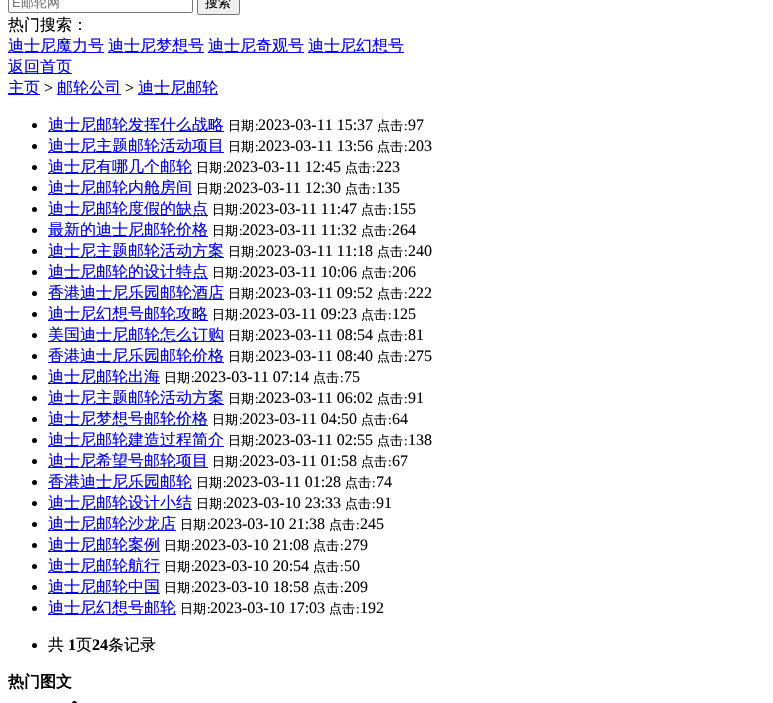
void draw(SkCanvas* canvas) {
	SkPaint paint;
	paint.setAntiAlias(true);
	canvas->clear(0xffffffff);
	paint.setStroke(true);
	paint.setStrokeWidth(1);
	paint.setColor(0xff767676);
	canvas->drawRoundRect(SkRect::MakeXYWH(8.5, -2.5, 184, 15), 1.5, 1.5, paint);
	SkFont f1(fontMgr->matchFamilyStyle("Liberation Sans", SkFontStyle::Normal()), 13);
	f1.setSubpixel(true);
	paint.setStroke(false);
	paint.setColor(0xff757575);
	canvas->drawString("E", 12, 7, f1, paint);
	SkFont f2(fontMgr->matchFamilyStyle("WenQuanYi Zen Hei", SkFontStyle(500, SkFontStyle::kNormal_Width, SkFontStyle::kUpright_Slant)), 13);
	f2.setSubpixel(true);
	canvas->drawString("邮轮网", 21, 7, f2, paint);
	paint.setColor(0xffefefef);
	canvas->drawRoundRect(SkRect::MakeXYWH(197.5, -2.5, 42, 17), 1.5, 1.5, paint);
	paint.setStroke(true);
	paint.setColor(0xff767676);
	canvas->drawRoundRect(SkRect::MakeXYWH(197.5, -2.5, 42, 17), 1.5, 1.5, paint);
	paint.setStroke(false);
	paint.setColor(0xff000000);
	canvas->drawString("搜索", 205, 7, f2, paint);
	SkFont f3(fontMgr->matchFamilyStyle("WenQuanYi Zen Hei", SkFontStyle(500, SkFontStyle::kNormal_Width, SkFontStyle::kUpright_Slant)), 16);
	f3.setSubpixel(true);
	canvas->drawString("热门搜索：", 8, 30, f3, paint);
	paint.setColor(0xff0000ee);
	canvas->drawRect(SkRect::MakeXYWH(8, 52, 96, 1), paint);
	canvas->drawString("迪士尼魔力号", 8, 51, f3, paint);
	canvas->drawRect(SkRect::MakeXYWH(108, 52, 96, 1), paint);
	canvas->drawString("迪士尼梦想号", 108, 51, f3, paint);
	canvas->drawRect(SkRect::MakeXYWH(208, 52, 96, 1), paint);
	canvas->drawString("迪士尼奇观号", 208, 51, f3, paint);
	canvas->drawRect(SkRect::MakeXYWH(308, 52, 96, 1), paint);
	canvas->drawString("迪士尼幻想号", 308, 51, f3, paint);
	canvas->drawRect(SkRect::MakeXYWH(8, 73, 64, 1), paint);
	canvas->drawString("返回首页", 8, 72, f3, paint);
	canvas->drawRect(SkRect::MakeXYWH(8, 94, 32, 1), paint);
	canvas->drawString("主页", 8, 93, f3, paint);
	SkFont f4(fontMgr->matchFamilyStyle("Liberation Serif", SkFontStyle::Normal()), 16);
	f4.setSubpixel(true);
	paint.setColor(0xff000000);
	canvas->drawString(">", 44, 93, f4, paint);
	paint.setColor(0xff0000ee);
	canvas->drawRect(SkRect::MakeXYWH(57, 94, 64, 1), paint);
	canvas->drawString("邮轮公司", 57, 93, f3, paint);
	paint.setColor(0xff000000);
	canvas->drawString(">", 125, 93, f4, paint);
	paint.setColor(0xff0000ee);
	canvas->drawRect(SkRect::MakeXYWH(138, 94, 80, 1), paint);
	canvas->drawString("迪士尼邮轮", 138, 93, f3, paint);
	paint.setColor(0xff000000);
	canvas->drawCircle(34.5, 125.5, 2.5, paint);
	paint.setColor(0xff0000ee);
	canvas->drawRect(SkRect::MakeXYWH(48, 131, 176, 1), paint);
	canvas->drawString("迪士尼邮轮发挥什么战略", 48, 130, f3, paint);
	paint.setColor(0xff000000);
	canvas->drawString("日期", 228, 130, f2, paint);
	SkFont f5(fontMgr->matchFamilyStyle("Liberation Serif", SkFontStyle::Normal()), 13);
	f5.setSubpixel(true);
	canvas->drawString(":", 255, 130, f5, paint);
	canvas->drawString("2023-03-11 15:37", 258, 130, f4, paint);
	canvas->drawString("点击", 377, 130, f2, paint);
	canvas->drawString(":", 404, 130, f5, paint);
	canvas->drawString("97", 408, 130, f4, paint);
	canvas->drawCircle(34.5, 146.5, 2.5, paint);
	paint.setColor(0xff0000ee);
	canvas->drawRect(SkRect::MakeXYWH(48, 152, 176, 1), paint);
	canvas->drawString("迪士尼主题邮轮活动项目", 48, 151, f3, paint);
	paint.setColor(0xff000000);
	canvas->drawString("日期", 228, 151, f2, paint);
	canvas->drawString(":", 255, 151, f5, paint);
	canvas->drawString("2023-03-11 13:56", 258, 151, f4, paint);
	canvas->drawString("点击", 377, 151, f2, paint);
	canvas->drawString(":", 404, 151, f5, paint);
	canvas->drawString("203", 408, 151, f4, paint);
	canvas->drawCircle(34.5, 167.5, 2.5, paint);
	paint.setColor(0xff0000ee);
	canvas->drawRect(SkRect::MakeXYWH(48, 173, 144, 1), paint);
	canvas->drawString("迪士尼有哪几个邮轮", 48, 172, f3, paint);
	paint.setColor(0xff000000);
	canvas->drawString("日期", 196, 172, f2, paint);
	canvas->drawString(":", 223, 172, f5, paint);
	canvas->drawString("2023-03-11 12:45", 226, 172, f4, paint);
	canvas->drawString("点击", 345, 172, f2, paint);
	canvas->drawString(":", 372, 172, f5, paint);
	canvas->drawString("223", 376, 172, f4, paint);
	canvas->drawCircle(34.5, 188.5, 2.5, paint);
	paint.setColor(0xff0000ee);
	canvas->drawRect(SkRect::MakeXYWH(48, 194, 144, 1), paint);
	canvas->drawString("迪士尼邮轮内舱房间", 48, 193, f3, paint);
	paint.setColor(0xff000000);
	canvas->drawString("日期", 196, 193, f2, paint);
	canvas->drawString(":", 223, 193, f5, paint);
	canvas->drawString("2023-03-11 12:30", 226, 193, f4, paint);
	canvas->drawString("点击", 345, 193, f2, paint);
	canvas->drawString(":", 372, 193, f5, paint);
	canvas->drawString("135", 376, 193, f4, paint);
	canvas->drawCircle(34.5, 209.5, 2.5, paint);
	paint.setColor(0xff0000ee);
	canvas->drawRect(SkRect::MakeXYWH(48, 215, 160, 1), paint);
	canvas->drawString("迪士尼邮轮度假的缺点", 48, 214, f3, paint);
	paint.setColor(0xff000000);
	canvas->drawString("日期", 212, 214, f2, paint);
	canvas->drawString(":", 239, 214, f5, paint);
	canvas->drawString("2023-03-11 11:47", 242, 214, f4, paint);
	canvas->drawString("点击", 361, 214, f2, paint);
	canvas->drawString(":", 388, 214, f5, paint);
	canvas->drawString("155", 392, 214, f4, paint);
	canvas->drawCircle(34.5, 230.5, 2.5, paint);
	paint.setColor(0xff0000ee);
	canvas->drawRect(SkRect::MakeXYWH(48, 236, 160, 1), paint);
	canvas->drawString("最新的迪士尼邮轮价格", 48, 235, f3, paint);
	paint.setColor(0xff000000);
	canvas->drawString("日期", 212, 235, f2, paint);
	canvas->drawString(":", 239, 235, f5, paint);
	canvas->drawString("2023-03-11 11:32", 242, 235, f4, paint);
	canvas->drawString("点击", 361, 235, f2, paint);
	canvas->drawString(":", 388, 235, f5, paint);
	canvas->drawString("264", 392, 235, f4, paint);
	canvas->drawCircle(34.5, 251.5, 2.5, paint);
	paint.setColor(0xff0000ee);
	canvas->drawRect(SkRect::MakeXYWH(48, 257, 176, 1), paint);
	canvas->drawString("迪士尼主题邮轮活动方案", 48, 256, f3, paint);
	paint.setColor(0xff000000);
	canvas->drawString("日期", 228, 256, f2, paint);
	canvas->drawString(":", 255, 256, f5, paint);
	canvas->drawString("2023-03-11 11:18", 258, 256, f4, paint);
	canvas->drawString("点击", 377, 256, f2, paint);
	canvas->drawString(":", 404, 256, f5, paint);
	canvas->drawString("240", 408, 256, f4, paint);
	canvas->drawCircle(34.5, 272.5, 2.5, paint);
	paint.setColor(0xff0000ee);
	canvas->drawRect(SkRect::MakeXYWH(48, 278, 160, 1), paint);
	canvas->drawString("迪士尼邮轮的设计特点", 48, 277, f3, paint);
	paint.setColor(0xff000000);
	canvas->drawString("日期", 212, 277, f2, paint);
	canvas->drawString(":", 239, 277, f5, paint);
	canvas->drawString("2023-03-11 10:06", 242, 277, f4, paint);
	canvas->drawString("点击", 361, 277, f2, paint);
	canvas->drawString(":", 388, 277, f5, paint);
	canvas->drawString("206", 392, 277, f4, paint);
	canvas->drawCircle(34.5, 293.5, 2.5, paint);
	paint.setColor(0xff0000ee);
	canvas->drawRect(SkRect::MakeXYWH(48, 299, 176, 1), paint);
	canvas->drawString("香港迪士尼乐园邮轮酒店", 48, 298, f3, paint);
	paint.setColor(0xff000000);
	canvas->drawString("日期", 228, 298, f2, paint);
	canvas->drawString(":", 255, 298, f5, paint);
	canvas->drawString("2023-03-11 09:52", 258, 298, f4, paint);
	canvas->drawString("点击", 377, 298, f2, paint);
	canvas->drawString(":", 404, 298, f5, paint);
	canvas->drawString("222", 408, 298, f4, paint);
	canvas->drawCircle(34.5, 314.5, 2.5, paint);
	paint.setColor(0xff0000ee);
	canvas->drawRect(SkRect::MakeXYWH(48, 320, 160, 1), paint);
	canvas->drawString("迪士尼幻想号邮轮攻略", 48, 319, f3, paint);
	paint.setColor(0xff000000);
	canvas->drawString("日期", 212, 319, f2, paint);
	canvas->drawString(":", 239, 319, f5, paint);
	canvas->drawString("2023-03-11 09:23", 242, 319, f4, paint);
	canvas->drawString("点击", 361, 319, f2, paint);
	canvas->drawString(":", 388, 319, f5, paint);
	canvas->drawString("125", 392, 319, f4, paint);
	canvas->drawCircle(34.5, 335.5, 2.5, paint);
	paint.setColor(0xff0000ee);
	canvas->drawRect(SkRect::MakeXYWH(48, 341, 176, 1), paint);
	canvas->drawString("美国迪士尼邮轮怎么订购", 48, 340, f3, paint);
	paint.setColor(0xff000000);
	canvas->drawString("日期", 228, 340, f2, paint);
	canvas->drawString(":", 255, 340, f5, paint);
	canvas->drawString("2023-03-11 08:54", 258, 340, f4, paint);
	canvas->drawString("点击", 377, 340, f2, paint);
	canvas->drawString(":", 404, 340, f5, paint);
	canvas->drawString("81", 408, 340, f4, paint);
	canvas->drawCircle(34.5, 356.5, 2.5, paint);
	paint.setColor(0xff0000ee);
	canvas->drawRect(SkRect::MakeXYWH(48, 362, 176, 1), paint);
	canvas->drawString("香港迪士尼乐园邮轮价格", 48, 361, f3, paint);
	paint.setColor(0xff000000);
	canvas->drawString("日期", 228, 361, f2, paint);
	canvas->drawString(":", 255, 361, f5, paint);
	canvas->drawString("2023-03-11 08:40", 258, 361, f4, paint);
	canvas->drawString("点击", 377, 361, f2, paint);
	canvas->drawString(":", 404, 361, f5, paint);
	canvas->drawString("275", 408, 361, f4, paint);
	canvas->drawCircle(34.5, 377.5, 2.5, paint);
	paint.setColor(0xff0000ee);
	canvas->drawRect(SkRect::MakeXYWH(48, 383, 112, 1), paint);
	canvas->drawString("迪士尼邮轮出海", 48, 382, f3, paint);
	paint.setColor(0xff000000);
	canvas->drawString("日期", 164, 382, f2, paint);
	canvas->drawString(":", 191, 382, f5, paint);
	canvas->drawString("2023-03-11 07:14", 194, 382, f4, paint);
	canvas->drawString("点击", 313, 382, f2, paint);
	canvas->drawString(":", 340, 382, f5, paint);
	canvas->drawString("75", 344, 382, f4, paint);
	canvas->drawCircle(34.5, 398.5, 2.5, paint);
	paint.setColor(0xff0000ee);
	canvas->drawRect(SkRect::MakeXYWH(48, 404, 176, 1), paint);
	canvas->drawString("迪士尼主题邮轮活动方案", 48, 403, f3, paint);
	paint.setColor(0xff000000);
	canvas->drawString("日期", 228, 403, f2, paint);
	canvas->drawString(":", 255, 403, f5, paint);
	canvas->drawString("2023-03-11 06:02", 258, 403, f4, paint);
	canvas->drawString("点击", 377, 403, f2, paint);
	canvas->drawString(":", 404, 403, f5, paint);
	canvas->drawString("91", 408, 403, f4, paint);
	canvas->drawCircle(34.5, 419.5, 2.5, paint);
	paint.setColor(0xff0000ee);
	canvas->drawRect(SkRect::MakeXYWH(48, 425, 160, 1), paint);
	canvas->drawString("迪士尼梦想号邮轮价格", 48, 424, f3, paint);
	paint.setColor(0xff000000);
	canvas->drawString("日期", 212, 424, f2, paint);
	canvas->drawString(":", 239, 424, f5, paint);
	canvas->drawString("2023-03-11 04:50", 242, 424, f4, paint);
	canvas->drawString("点击", 361, 424, f2, paint);
	canvas->drawString(":", 388, 424, f5, paint);
	canvas->drawString("64", 392, 424, f4, paint);
	canvas->drawCircle(34.5, 440.5, 2.5, paint);
	paint.setColor(0xff0000ee);
	canvas->drawRect(SkRect::MakeXYWH(48, 446, 176, 1), paint);
	canvas->drawString("迪士尼邮轮建造过程简介", 48, 445, f3, paint);
	paint.setColor(0xff000000);
	canvas->drawString("日期", 228, 445, f2, paint);
	canvas->drawString(":", 255, 445, f5, paint);
	canvas->drawString("2023-03-11 02:55", 258, 445, f4, paint);
	canvas->drawString("点击", 377, 445, f2, paint);
	canvas->drawString(":", 404, 445, f5, paint);
	canvas->drawString("138", 408, 445, f4, paint);
	canvas->drawCircle(34.5, 461.5, 2.5, paint);
	paint.setColor(0xff0000ee);
	canvas->drawRect(SkRect::MakeXYWH(48, 467, 160, 1), paint);
	canvas->drawString("迪士尼希望号邮轮项目", 48, 466, f3, paint);
	paint.setColor(0xff000000);
	canvas->drawString("日期", 212, 466, f2, paint);
	canvas->drawString(":", 239, 466, f5, paint);
	canvas->drawString("2023-03-11 01:58", 242, 466, f4, paint);
	canvas->drawString("点击", 361, 466, f2, paint);
	canvas->drawString(":", 388, 466, f5, paint);
	canvas->drawString("67", 392, 466, f4, paint);
	canvas->drawCircle(34.5, 482.5, 2.5, paint);
	paint.setColor(0xff0000ee);
	canvas->drawRect(SkRect::MakeXYWH(48, 488, 144, 1), paint);
	canvas->drawString("香港迪士尼乐园邮轮", 48, 487, f3, paint);
	paint.setColor(0xff000000);
	canvas->drawString("日期", 196, 487, f2, paint);
	canvas->drawString(":", 223, 487, f5, paint);
	canvas->drawString("2023-03-11 01:28", 226, 487, f4, paint);
	canvas->drawString("点击", 345, 487, f2, paint);
	canvas->drawString(":", 372, 487, f5, paint);
	canvas->drawString("74", 376, 487, f4, paint);
	canvas->drawCircle(34.5, 503.5, 2.5, paint);
	paint.setColor(0xff0000ee);
	canvas->drawRect(SkRect::MakeXYWH(48, 509, 144, 1), paint);
	canvas->drawString("迪士尼邮轮设计小结", 48, 508, f3, paint);
	paint.setColor(0xff000000);
	canvas->drawString("日期", 196, 508, f2, paint);
	canvas->drawString(":", 223, 508, f5, paint);
	canvas->drawString("2023-03-10 23:33", 226, 508, f4, paint);
	canvas->drawString("点击", 345, 508, f2, paint);
	canvas->drawString(":", 372, 508, f5, paint);
	canvas->drawString("91", 376, 508, f4, paint);
	canvas->drawCircle(34.5, 524.5, 2.5, paint);
	paint.setColor(0xff0000ee);
	canvas->drawRect(SkRect::MakeXYWH(48, 530, 128, 1), paint);
	canvas->drawString("迪士尼邮轮沙龙店", 48, 529, f3, paint);
	paint.setColor(0xff000000);
	canvas->drawString("日期", 180, 529, f2, paint);
	canvas->drawString(":", 207, 529, f5, paint);
	canvas->drawString("2023-03-10 21:38", 210, 529, f4, paint);
	canvas->drawString("点击", 329, 529, f2, paint);
	canvas->drawString(":", 356, 529, f5, paint);
	canvas->drawString("245", 360, 529, f4, paint);
	canvas->drawCircle(34.5, 545.5, 2.5, paint);
	paint.setColor(0xff0000ee);
	canvas->drawRect(SkRect::MakeXYWH(48, 551, 112, 1), paint);
	canvas->drawString("迪士尼邮轮案例", 48, 550, f3, paint);
	paint.setColor(0xff000000);
	canvas->drawString("日期", 164, 550, f2, paint);
	canvas->drawString(":", 191, 550, f5, paint);
	canvas->drawString("2023-03-10 21:08", 194, 550, f4, paint);
	canvas->drawString("点击", 313, 550, f2, paint);
	canvas->drawString(":", 340, 550, f5, paint);
	canvas->drawString("279", 344, 550, f4, paint);
	canvas->drawCircle(34.5, 566.5, 2.5, paint);
	paint.setColor(0xff0000ee);
	canvas->drawRect(SkRect::MakeXYWH(48, 572, 112, 1), paint);
	canvas->drawString("迪士尼邮轮航行", 48, 571, f3, paint);
	paint.setColor(0xff000000);
	canvas->drawString("日期", 164, 571, f2, paint);
	canvas->drawString(":", 191, 571, f5, paint);
	canvas->drawString("2023-03-10 20:54", 194, 571, f4, paint);
	canvas->drawString("点击", 313, 571, f2, paint);
	canvas->drawString(":", 340, 571, f5, paint);
	canvas->drawString("50", 344, 571, f4, paint);
	canvas->drawCircle(34.5, 587.5, 2.5, paint);
	paint.setColor(0xff0000ee);
	canvas->drawRect(SkRect::MakeXYWH(48, 593, 112, 1), paint);
	canvas->drawString("迪士尼邮轮中国", 48, 592, f3, paint);
	paint.setColor(0xff000000);
	canvas->drawString("日期", 164, 592, f2, paint);
	canvas->drawString(":", 191, 592, f5, paint);
	canvas->drawString("2023-03-10 18:58", 194, 592, f4, paint);
	canvas->drawString("点击", 313, 592, f2, paint);
	canvas->drawString(":", 340, 592, f5, paint);
	canvas->drawString("209", 344, 592, f4, paint);
	canvas->drawCircle(34.5, 608.5, 2.5, paint);
	paint.setColor(0xff0000ee);
	canvas->drawRect(SkRect::MakeXYWH(48, 614, 128, 1), paint);
	canvas->drawString("迪士尼幻想号邮轮", 48, 613, f3, paint);
	paint.setColor(0xff000000);
	canvas->drawString("日期", 180, 613, f2, paint);
	canvas->drawString(":", 207, 613, f5, paint);
	canvas->drawString("2023-03-10 17:03", 210, 613, f4, paint);
	canvas->drawString("点击", 329, 613, f2, paint);
	canvas->drawString(":", 356, 613, f5, paint);
	canvas->drawString("192", 360, 613, f4, paint);
	canvas->drawCircle(34.5, 645.5, 2.5, paint);
	canvas->drawString("共", 48, 650, f3, paint);
	SkFont f6(fontMgr->matchFamilyStyle("Liberation Serif", SkFontStyle::Bold()), 16);
	f6.setSubpixel(true);
	canvas->drawString("1", 68, 650, f6, paint);
	canvas->drawString("页", 76, 650, f3, paint);
	canvas->drawString("24", 92, 650, f6, paint);
	canvas->drawString("条记录", 108, 650, f3, paint);
	SkFont f7(fontMgr->matchFamilyStyle("WenQuanYi Zen Hei", SkFontStyle::Bold()), 16);
	f7.setSubpixel(true);
	canvas->drawString("热门图文", 8, 687, f7, paint);
	canvas->drawCircle(74.5, 703.5, 2.5, paint);
}
